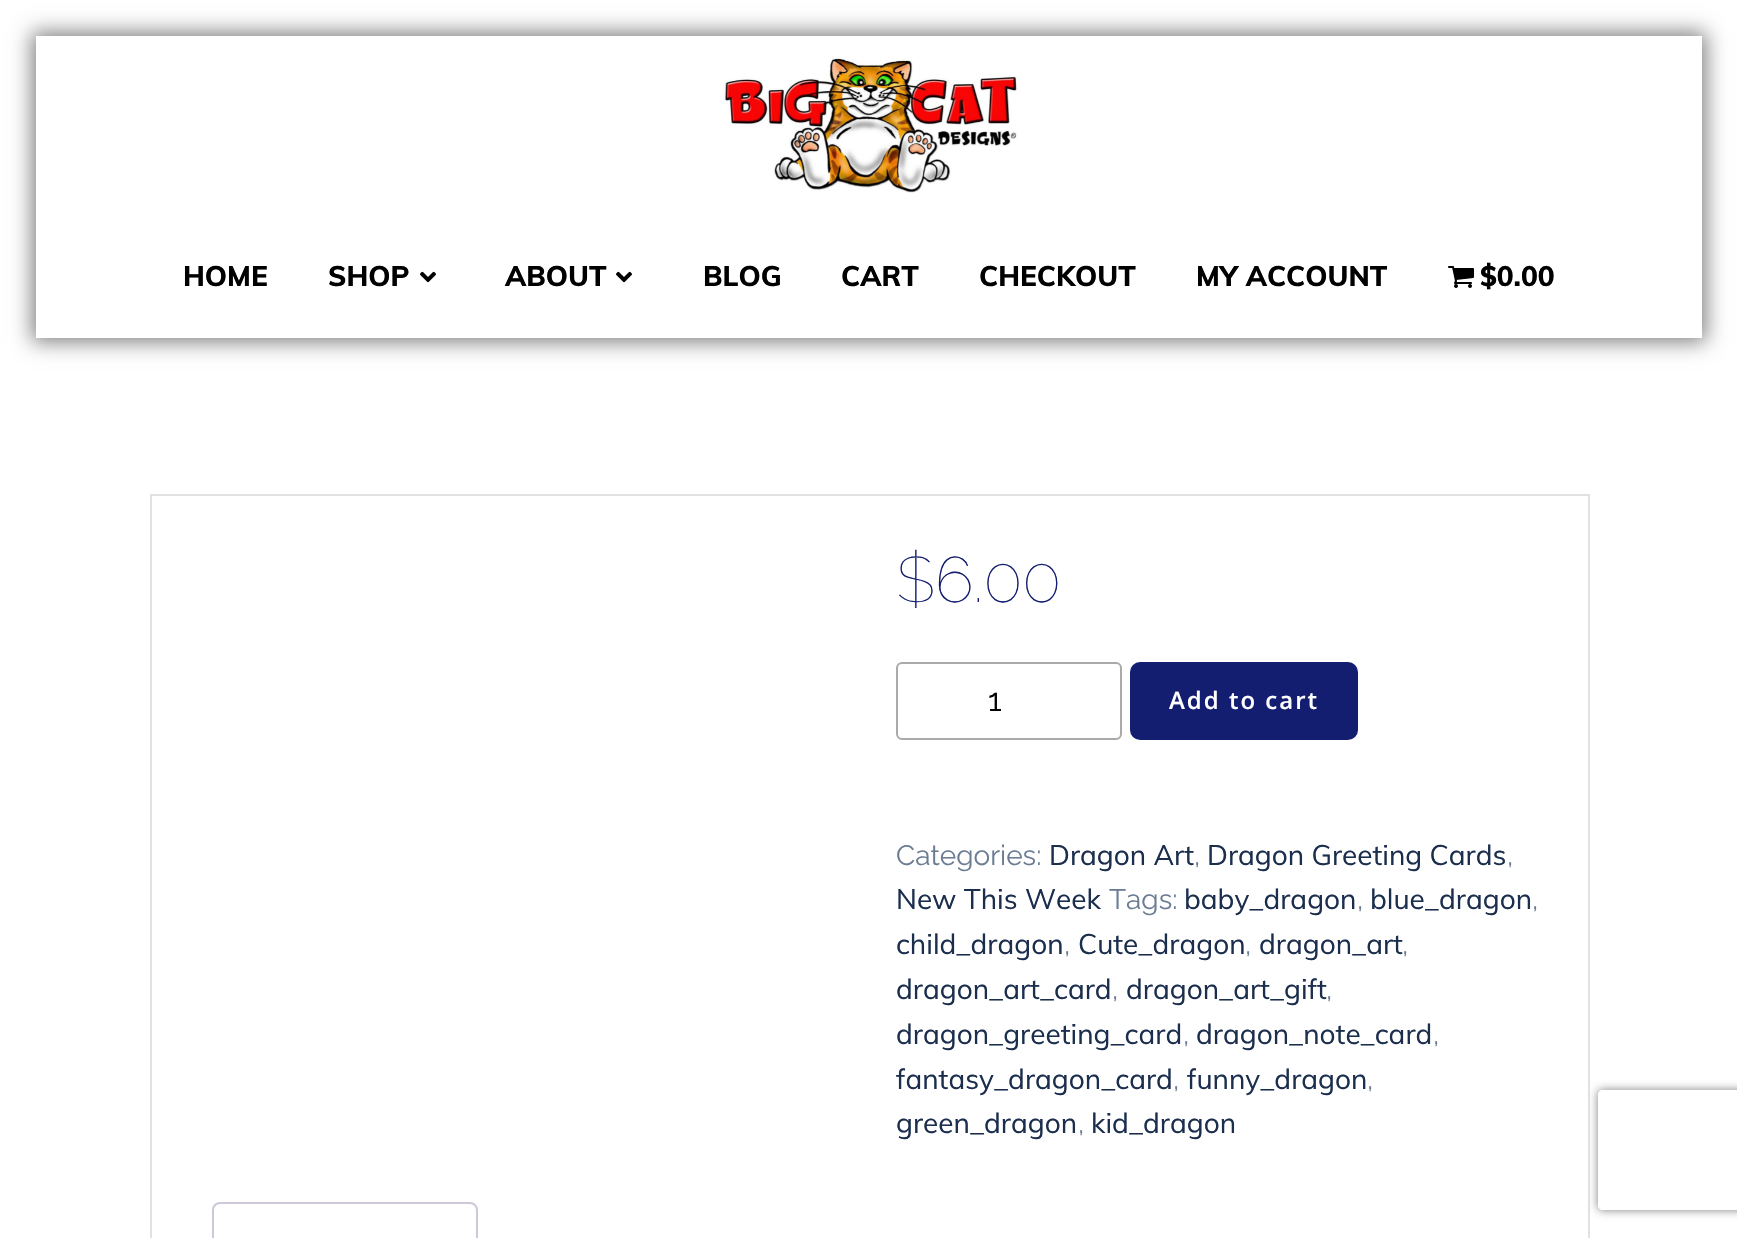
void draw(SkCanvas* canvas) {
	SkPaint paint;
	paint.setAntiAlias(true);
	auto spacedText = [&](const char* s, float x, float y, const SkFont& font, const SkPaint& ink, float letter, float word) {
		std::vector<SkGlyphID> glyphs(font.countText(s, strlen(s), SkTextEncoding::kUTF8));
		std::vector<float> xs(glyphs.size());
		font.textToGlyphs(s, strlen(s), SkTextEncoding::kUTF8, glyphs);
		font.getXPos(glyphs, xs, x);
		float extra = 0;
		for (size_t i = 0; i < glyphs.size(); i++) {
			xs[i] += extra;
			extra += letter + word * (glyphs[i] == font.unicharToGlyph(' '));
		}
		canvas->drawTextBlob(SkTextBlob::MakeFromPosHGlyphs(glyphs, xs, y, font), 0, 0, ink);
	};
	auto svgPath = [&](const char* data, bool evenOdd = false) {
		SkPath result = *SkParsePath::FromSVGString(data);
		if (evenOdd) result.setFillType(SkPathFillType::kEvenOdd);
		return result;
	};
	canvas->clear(0xffffffff);
	paint.setColor(0x80000000);
	paint.setMaskFilter(SkMaskFilter::MakeBlur(kNormal_SkBlurStyle, 10));
	canvas->drawRect(SkRect::MakeXYWH(32, 32, 1674, 310), paint);
	paint.setMaskFilter(nullptr);
	paint.setColor(0xffffffff);
	canvas->drawRect(SkRect::MakeXYWH(36, 36, 1666, 302), paint);
	canvas->drawImageRect(SkImages::DeferredFromEncodedData(SkData::MakeFromFileName("img1.png")), SkRect::MakeXYWH(723, 56, 295, 137), SkSamplingOptions());
	SkFont f1(fontMgr->matchFamilyStyle("Muli", SkFontStyle(800, SkFontStyle::kNormal_Width, SkFontStyle::kUpright_Slant)), 28);
	f1.setSubpixel(true);
	paint.setColor(0xff000000);
	canvas->drawString("HOME", 183, 286, f1, paint);
	canvas->drawString("SHOP", 328, 286, f1, paint);
	canvas->drawImageRect(SkImages::DeferredFromEncodedData(SkData::MakeFromFileName("img2.png")), SkRect::MakeXYWH(420, 271, 16, 12), SkSamplingOptions());
	canvas->drawString("ABOUT", 505, 286, f1, paint);
	canvas->drawImageRect(SkImages::DeferredFromEncodedData(SkData::MakeFromFileName("img2.png")), SkRect::MakeXYWH(616, 271, 16, 12), SkSamplingOptions());
	canvas->drawString("BLOG", 703, 286, f1, paint);
	canvas->drawString("CART", 841, 286, f1, paint);
	canvas->drawString("CHECKOUT", 979, 286, f1, paint);
	canvas->drawString("MY ACCOUNT", 1196, 286, f1, paint);
	canvas->drawImageRect(SkImages::DeferredFromEncodedData(SkData::MakeFromFileName("img3.png")), SkRect::MakeXYWH(1448, 266, 26, 22), SkSamplingOptions());
	canvas->drawString("$0.00", 1480, 286, f1, paint);
	canvas->save();
	canvas->clipPath(svgPath("M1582 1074H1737V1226H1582ZM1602 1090H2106C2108 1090 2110 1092 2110 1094V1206C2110 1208 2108 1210 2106 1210H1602C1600 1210 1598 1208 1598 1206V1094C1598 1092 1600 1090 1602 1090Z", true), true);
	paint.setColor(0xff808080);
	paint.setMaskFilter(SkMaskFilter::MakeBlur(kNormal_SkBlurStyle, 5));
	canvas->drawRoundRect(SkRect::MakeXYWH(1598, 1090, 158, 120), 4, 4, paint);
	paint.setMaskFilter(nullptr);
	canvas->restore();
	paint.setStroke(true);
	paint.setStrokeWidth(2);
	paint.setColor(0xffe0e1e1);
	canvas->drawRect(SkRect::MakeXYWH(151, 495, 1438, 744), paint);
	SkFont f2(fontMgr->matchFamilyStyle("Raleway", SkFontStyle(100, SkFontStyle::kNormal_Width, SkFontStyle::kUpright_Slant)), 64);
	f2.setSubpixel(true);
	paint.setStroke(false);
	paint.setColor(0xff141e70);
	canvas->drawString("$6.00", 896, 602, f2, paint);
	paint.setStroke(true);
	paint.setColor(0xffaaaaaa);
	canvas->drawRoundRect(SkRect::MakeXYWH(897, 663, 224, 76), 5, 5, paint);
	SkFont f3(fontMgr->matchFamilyStyle("Raleway", SkFontStyle::Normal()), 32);
	f3.setSubpixel(true);
	paint.setStroke(false);
	paint.setColor(0xff000000);
	canvas->drawString("1", 988, 711, f3, paint);
	paint.setColor(0xff141e70);
	canvas->drawRoundRect(SkRect::MakeXYWH(1130, 662, 228, 78), 10, 10, paint);
	SkFont f4(fontMgr->matchFamilyStyle("Open Sans", SkFontStyle(600, SkFontStyle::kNormal_Width, SkFontStyle::kUpright_Slant)), 24);
	f4.setSubpixel(true);
	paint.setColor(0xffffffff);
	spacedText("Add to cart", 1169, 709, f4, paint, 2, 0);
	SkFont f5(fontMgr->matchFamilyStyle("Raleway", SkFontStyle::Normal()), 28);
	f5.setSubpixel(true);
	paint.setColor(0xff6b7c93);
	canvas->drawString("Categories:", 896, 865, f5, paint);
	SkFont f6(fontMgr->matchFamilyStyle("Muli", SkFontStyle::Normal()), 28);
	f6.setSubpixel(true);
	paint.setColor(0xff1b2e4d);
	canvas->drawString("Dragon Art", 1049, 865, f6, paint);
	paint.setColor(0xff6b7c93);
	canvas->drawString(",", 1194, 865, f5, paint);
	paint.setColor(0xff1b2e4d);
	canvas->drawString("Dragon Greeting Cards", 1207, 865, f6, paint);
	paint.setColor(0xff6b7c93);
	canvas->drawString(",", 1507, 865, f5, paint);
	paint.setColor(0xff1b2e4d);
	canvas->drawString("New This Week", 896, 909, f6, paint);
	paint.setColor(0xff6b7c93);
	canvas->drawString("Tags:", 1109, 909, f5, paint);
	paint.setColor(0xff1b2e4d);
	canvas->drawString("baby_dragon", 1184, 909, f6, paint);
	paint.setColor(0xff6b7c93);
	canvas->drawString(",", 1357, 909, f5, paint);
	paint.setColor(0xff1b2e4d);
	canvas->drawString("blue_dragon", 1370, 909, f6, paint);
	paint.setColor(0xff6b7c93);
	canvas->drawString(",", 1532, 909, f5, paint);
	paint.setColor(0xff1b2e4d);
	canvas->drawString("child_dragon", 896, 954, f6, paint);
	paint.setColor(0xff6b7c93);
	canvas->drawString(",", 1064, 954, f5, paint);
	paint.setColor(0xff1b2e4d);
	canvas->drawString("Cute_dragon", 1078, 954, f6, paint);
	paint.setColor(0xff6b7c93);
	canvas->drawString(",", 1245, 954, f5, paint);
	paint.setColor(0xff1b2e4d);
	canvas->drawString("dragon_art", 1259, 954, f6, paint);
	paint.setColor(0xff6b7c93);
	canvas->drawString(",", 1402, 954, f5, paint);
	paint.setColor(0xff1b2e4d);
	canvas->drawString("dragon_art_card", 896, 999, f6, paint);
	paint.setColor(0xff6b7c93);
	canvas->drawString(",", 1112, 999, f5, paint);
	paint.setColor(0xff1b2e4d);
	canvas->drawString("dragon_art_gift", 1126, 999, f6, paint);
	paint.setColor(0xff6b7c93);
	canvas->drawString(",", 1326, 999, f5, paint);
	paint.setColor(0xff1b2e4d);
	canvas->drawString("dragon_greeting_card", 896, 1044, f6, paint);
	paint.setColor(0xff6b7c93);
	canvas->drawString(",", 1183, 1044, f5, paint);
	paint.setColor(0xff1b2e4d);
	canvas->drawString("dragon_note_card", 1196, 1044, f6, paint);
	paint.setColor(0xff6b7c93);
	canvas->drawString(",", 1433, 1044, f5, paint);
	paint.setColor(0xff1b2e4d);
	canvas->drawString("fantasy_dragon_card", 896, 1089, f6, paint);
	paint.setColor(0xff6b7c93);
	canvas->drawString(",", 1173, 1089, f5, paint);
	paint.setColor(0xff1b2e4d);
	canvas->drawString("funny_dragon", 1187, 1089, f6, paint);
	paint.setColor(0xff6b7c93);
	canvas->drawString(",", 1367, 1089, f5, paint);
	paint.setColor(0xff1b2e4d);
	canvas->drawString("green_dragon", 896, 1133, f6, paint);
	paint.setColor(0xff6b7c93);
	canvas->drawString(",", 1078, 1133, f5, paint);
	paint.setColor(0xff1b2e4d);
	canvas->drawString("kid_dragon", 1091, 1133, f6, paint);
	paint.setStroke(true);
	paint.setColor(0xffcfc8d8);
	canvas->drawPath(svgPath("M220 1203H470C474 1203 477 1206 477 1210V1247H213V1210C213 1206 216 1203 220 1203Z"), paint);
}
